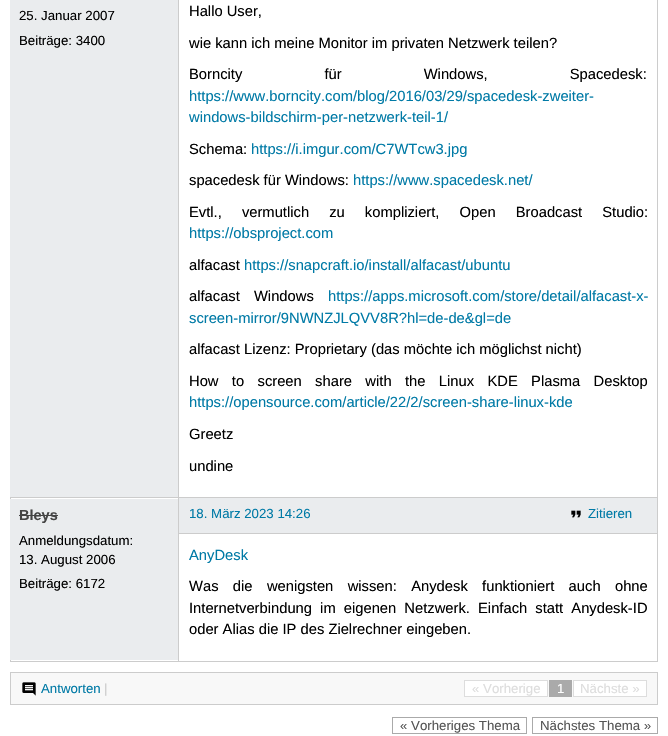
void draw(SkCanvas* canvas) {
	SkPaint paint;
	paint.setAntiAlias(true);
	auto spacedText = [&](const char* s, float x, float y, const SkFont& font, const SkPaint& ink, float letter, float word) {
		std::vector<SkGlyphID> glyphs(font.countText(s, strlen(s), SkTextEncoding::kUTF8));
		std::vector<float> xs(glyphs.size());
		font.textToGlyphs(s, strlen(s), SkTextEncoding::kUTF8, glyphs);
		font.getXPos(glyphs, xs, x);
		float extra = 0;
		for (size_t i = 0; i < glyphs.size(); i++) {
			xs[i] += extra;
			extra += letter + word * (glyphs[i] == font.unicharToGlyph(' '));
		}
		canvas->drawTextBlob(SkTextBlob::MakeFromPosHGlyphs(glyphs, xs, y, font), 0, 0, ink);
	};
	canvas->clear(0xffffffff);
	paint.setColor(0xffcccccc);
	canvas->drawRect(SkRect::MakeXYWH(657, 0, 1, 662), paint);
	canvas->drawRect(SkRect::MakeXYWH(10, 661, 648, 1), paint);
	canvas->drawRect(SkRect::MakeXYWH(10, 498, 1, 164), paint);
	paint.setColor(0xffeaecee);
	canvas->drawRect(SkRect::MakeXYWH(10, 0, 168, 497), paint);
	SkFont f1(fontMgr->matchFamilyStyle("Liberation Sans", SkFontStyle::Normal()), 13.25);
	f1.setSubpixel(true);
	paint.setColor(0xff000000);
	canvas->drawString("25. Januar 2007", 19, 20, f1, paint);
	canvas->drawString("Beiträge: 3400", 19, 45, f1, paint);
	SkFont f2(fontMgr->matchFamilyStyle("Liberation Sans", SkFontStyle::Normal()), 14.75);
	f2.setSubpixel(true);
	canvas->drawString("Hallo User,", 189, 16, f2, paint);
	canvas->drawString("wie kann ich meine Monitor im privaten Netzwerk teilen?", 189, 48, f2, paint);
	spacedText("Borncity für Windows, Spacedesk:", 189, 79, f2, paint, 0, 78);
	paint.setColor(0xff007aa6);
	canvas->drawString("https://www.borncity.com/blog/2016/03/29/spacedesk-zweiter-", 189, 101, f2, paint);
	canvas->drawString("windows-bildschirm-per-netzwerk-teil-1/", 189, 122, f2, paint);
	paint.setColor(0xff000000);
	canvas->drawString("Schema:", 189, 154, f2, paint);
	paint.setColor(0xff007aa6);
	canvas->drawString("https://i.imgur.com/C7WTcw3.jpg", 251, 154, f2, paint);
	paint.setColor(0xff000000);
	canvas->drawString("spacedesk für Windows:", 189, 185, f2, paint);
	paint.setColor(0xff007aa6);
	canvas->drawString("https://www.spacedesk.net/", 353, 185, f2, paint);
	paint.setColor(0xff000000);
	spacedText("Evtl., vermutlich zu kompliziert, Open Broadcast Studio:", 189, 217, f2, paint, 0, 16);
	paint.setColor(0xff007aa6);
	canvas->drawString("https://obsproject.com", 189, 238, f2, paint);
	paint.setColor(0xff000000);
	canvas->drawString("alfacast", 189, 270, f2, paint);
	paint.setColor(0xff007aa6);
	canvas->drawString("https://snapcraft.io/install/alfacast/ubuntu", 244, 270, f2, paint);
	paint.setColor(0xff000000);
	spacedText("alfacast Windows", 189, 301, f2, paint, 0, 10);
	paint.setColor(0xff007aa6);
	canvas->drawString("https://apps.microsoft.com/store/detail/alfacast-x-", 328, 301, f2, paint);
	canvas->drawString("screen-mirror/9NWNZJLQVV8R?hl=de-de&gl=de", 189, 323, f2, paint);
	paint.setColor(0xff000000);
	canvas->drawString("alfacast Lizenz: Proprietary (das möchte ich möglichst nicht)", 189, 354, f2, paint);
	spacedText("How to screen share with the Linux KDE Plasma Desktop", 189, 386, f2, paint, 0, 9.25);
	paint.setColor(0xff007aa6);
	canvas->drawString("https://opensource.com/article/22/2/screen-share-linux-kde", 189, 407, f2, paint);
	paint.setColor(0xff000000);
	canvas->drawString("Greetz", 189, 439, f2, paint);
	canvas->drawString("undine", 189, 471, f2, paint);
	paint.setColor(0xffcccccc);
	canvas->drawRect(SkRect::MakeXYWH(10, 497, 648, 1), paint);
	canvas->drawRect(SkRect::MakeXYWH(178, 0, 1, 662), paint);
	paint.setColor(0xffeaecee);
	canvas->drawRect(SkRect::MakeXYWH(10, 499, 168, 161), paint);
	SkFont f3(fontMgr->matchFamilyStyle("Liberation Sans", SkFontStyle::Bold()), 14.5);
	f3.setSubpixel(true);
	paint.setColor(0xff444444);
	canvas->drawString("Bleys", 19, 520, f3, paint);
	canvas->drawRect(SkRect::MakeXYWH(19, 515, 39, 1), paint);
	paint.setColor(0xff000000);
	canvas->drawString("Anmeldungsdatum:", 19, 545, f1, paint);
	canvas->drawString("13. August 2006", 19, 564, f1, paint);
	canvas->drawString("Beiträge: 6172", 19, 588, f1, paint);
	paint.setColor(0xffeaecee);
	canvas->drawRect(SkRect::MakeXYWH(179, 498, 478, 35), paint);
	paint.setColor(0xffcccccc);
	canvas->drawRect(SkRect::MakeXYWH(179, 533, 478, 1), paint);
	paint.setColor(0xff007aa6);
	canvas->drawString("18. März 2023 14:26", 189, 518, f1, paint);
	canvas->drawImageRect(SkImages::DeferredFromEncodedData(SkData::MakeFromFileName("img1.png")), SkRect::MakeXYWH(571, 510, 10, 8), SkSamplingOptions());
	canvas->drawString("Zitieren", 588, 518, f1, paint);
	canvas->drawString("AnyDesk", 189, 560, f2, paint);
	paint.setColor(0xff000000);
	spacedText("Was die wenigsten wissen: Anydesk funktioniert auch ohne", 189, 591, f2, paint, 0, 10.25);
	spacedText("Internetverbindung im eigenen Netzwerk. Einfach statt Anydesk-ID", 189, 613, f2, paint, 0, 4);
	canvas->drawString("oder Alias die IP des Zielrechner eingeben.", 189, 634, f2, paint);
	paint.setColor(0xfff8f8f8);
	canvas->drawRect(SkRect::MakeXYWH(10.5, 672.5, 647, 32), paint);
	paint.setStroke(true);
	paint.setStrokeWidth(1);
	paint.setColor(0xffcccccc);
	canvas->drawRect(SkRect::MakeXYWH(10.5, 672.5, 647, 32), paint);
	canvas->drawImageRect(SkImages::DeferredFromEncodedData(SkData::MakeFromFileName("img2.png")), SkRect::MakeXYWH(22, 682, 14, 14), SkSamplingOptions());
	paint.setStroke(false);
	paint.setColor(0xff007aa6);
	canvas->drawString("Antworten", 41, 693, f1, paint);
	paint.setColor(0xffcccccc);
	canvas->drawString("|", 104, 693, f1, paint);
	paint.setColor(0xffffffff);
	canvas->drawRect(SkRect::MakeXYWH(464.5, 680.5, 83, 16), paint);
	paint.setStroke(true);
	paint.setColor(0xffdddddd);
	canvas->drawRect(SkRect::MakeXYWH(464.5, 680.5, 83, 16), paint);
	paint.setStroke(false);
	canvas->drawString("« Vorherige", 472, 693, f1, paint);
	paint.setColor(0xffaaaaaa);
	canvas->drawRect(SkRect::MakeXYWH(549, 680, 23, 17), paint);
	paint.setColor(0xffffffff);
	canvas->drawString("1", 557, 693, f1, paint);
	canvas->drawRect(SkRect::MakeXYWH(573.5, 680.5, 73, 16), paint);
	paint.setStroke(true);
	paint.setColor(0xffdddddd);
	canvas->drawRect(SkRect::MakeXYWH(573.5, 680.5, 73, 16), paint);
	paint.setStroke(false);
	canvas->drawString("Nächste »", 580, 693, f1, paint);
	paint.setStroke(true);
	paint.setColor(0xffaaaaaa);
	canvas->drawRect(SkRect::MakeXYWH(392.5, 717.5, 134, 16), paint);
	paint.setStroke(false);
	paint.setColor(0xff555555);
	canvas->drawString("« Vorheriges Thema", 400, 730, f1, paint);
	paint.setStroke(true);
	paint.setColor(0xffaaaaaa);
	canvas->drawRect(SkRect::MakeXYWH(532.5, 717.5, 125, 16), paint);
	paint.setStroke(false);
	paint.setColor(0xff555555);
	canvas->drawString("Nächstes Thema »", 540, 730, f1, paint);
}
